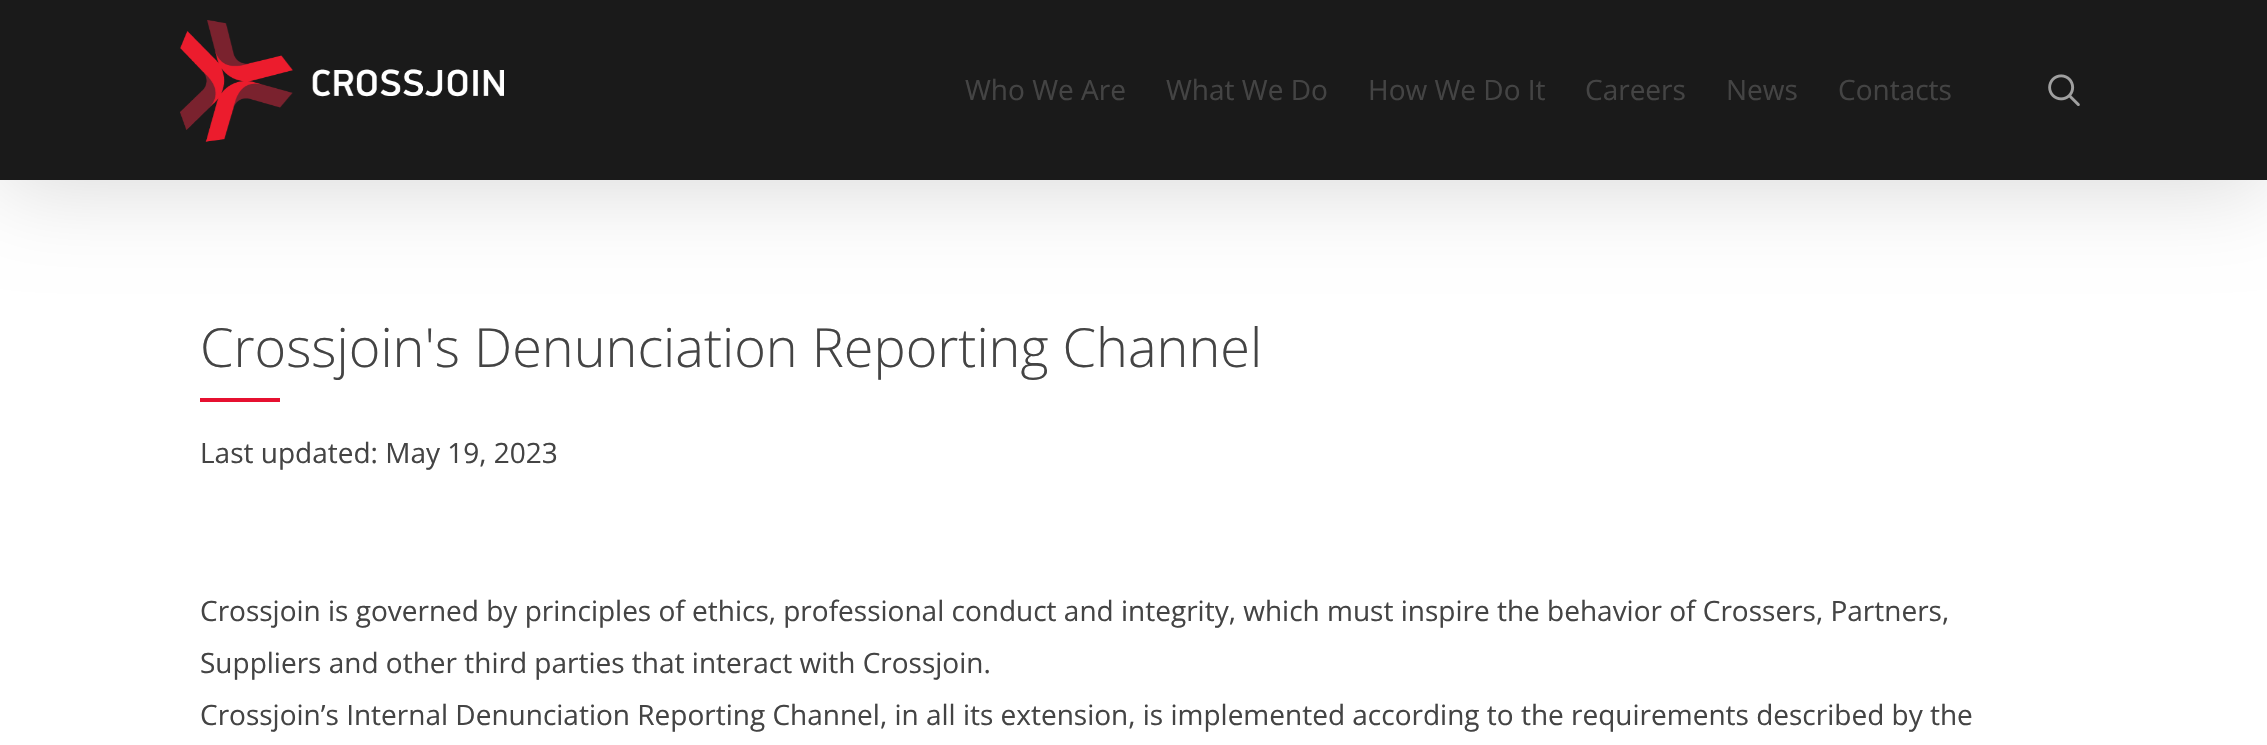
void draw(SkCanvas* canvas) {
	SkPaint paint;
	paint.setAntiAlias(true);
	canvas->clear(0xffffffff);
	paint.setColor(0x26000000);
	paint.setMaskFilter(SkMaskFilter::MakeBlur(kNormal_SkBlurStyle, 45));
	canvas->drawRect(SkRect::MakeXYWH(0, 6, 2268, 180), paint);
	paint.setMaskFilter(nullptr);
	paint.setColor(0xff1a1a1a);
	canvas->drawRect(SkRect::MakeXYWH(0, 0, 2267, 180), paint);
	canvas->drawImageRect(SkImages::DeferredFromEncodedData(SkData::MakeFromFileName("img1.png")), SkRect::MakeXYWH(180, 20, 324, 122), SkSamplingOptions());
	SkFont f1(fontMgr->matchFamilyStyle("Open Sans", SkFontStyle::Normal()), 28);
	f1.setSubpixel(true);
	paint.setColor(0xff444444);
	canvas->drawString("Who We Are", 965, 100, f1, paint);
	canvas->drawString("What We Do", 1166, 100, f1, paint);
	canvas->drawString("How We Do It", 1368, 100, f1, paint);
	canvas->drawString("Careers", 1585, 100, f1, paint);
	canvas->drawString("News", 1726, 100, f1, paint);
	canvas->drawString("Contacts", 1838, 100, f1, paint);
	canvas->drawImageRect(SkImages::DeferredFromEncodedData(SkData::MakeFromFileName("img2.png")), SkRect::MakeXYWH(2048, 74, 32, 32), SkSamplingOptions());
	SkFont f2(fontMgr->matchFamilyStyle("Open Sans", SkFontStyle(300, SkFontStyle::kNormal_Width, SkFontStyle::kUpright_Slant)), 54);
	f2.setSubpixel(true);
	canvas->drawString("Crossjoin's Denunciation Reporting Channel", 200, 367, f2, paint);
	paint.setColor(0xffe61030);
	canvas->drawRect(SkRect::MakeXYWH(200, 398, 80, 4), paint);
	paint.setColor(0xff444444);
	canvas->drawString("Last updated: May 19, 2023", 200, 463, f1, paint);
	canvas->drawString("Crossjoin is governed by principles of ethics, professional conduct and integrity, which must inspire the behavior of Crossers, Partners,", 200, 621, f1, paint);
	canvas->drawString("Suppliers and other third parties that interact with Crossjoin.", 200, 673, f1, paint);
	canvas->drawString("Crossjoin’s Internal Denunciation Reporting Channel, in all its extension, is implemented according to the requirements described by the", 200, 725, f1, paint);
}
